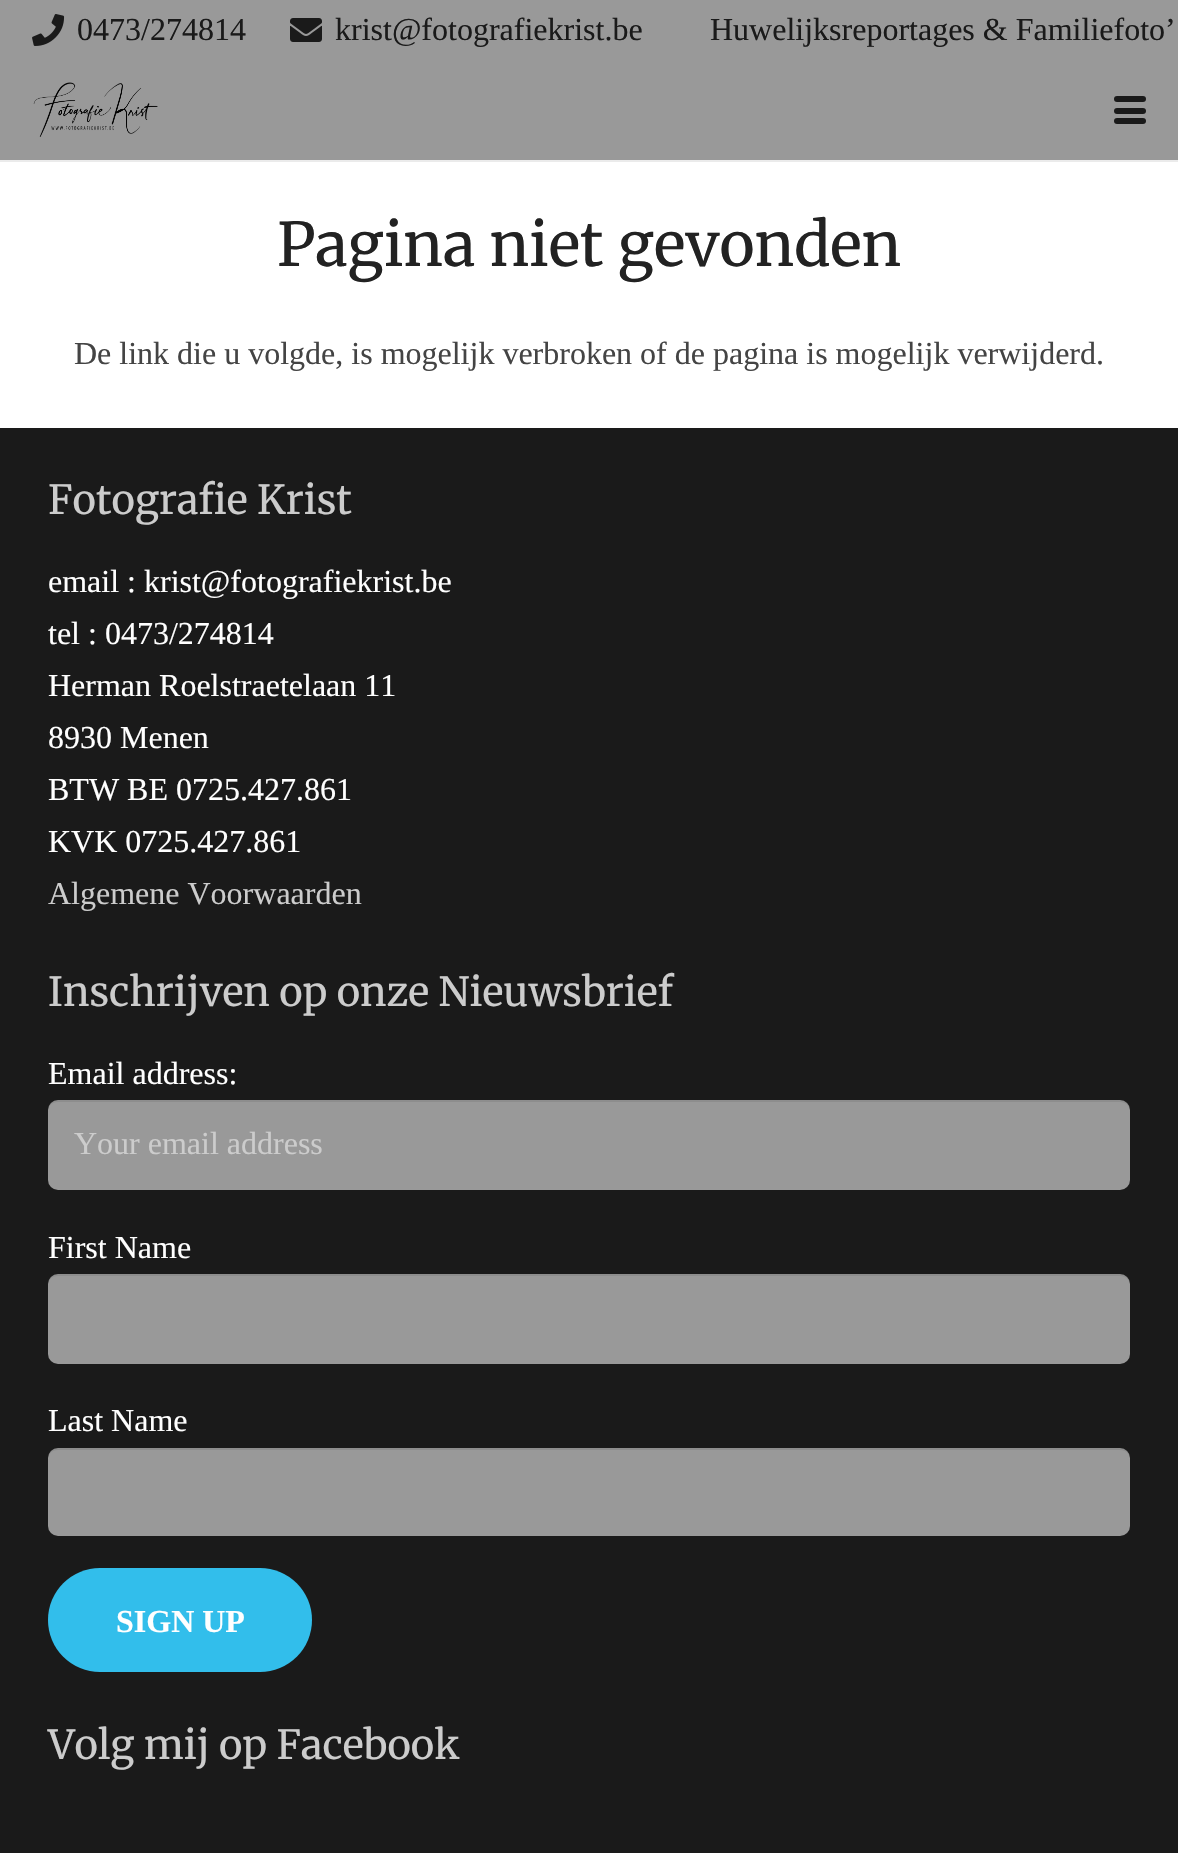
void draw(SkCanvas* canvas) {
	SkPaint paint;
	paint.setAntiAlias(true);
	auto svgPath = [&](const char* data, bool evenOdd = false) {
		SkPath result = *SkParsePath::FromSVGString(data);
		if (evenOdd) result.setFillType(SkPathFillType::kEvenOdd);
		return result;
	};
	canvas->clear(0xffffffff);
	paint.setColor(0xff999999);
	canvas->drawRect(SkRect::MakeXYWH(0, 0, 1178, 160), paint);
	canvas->drawImageRect(SkImages::DeferredFromEncodedData(SkData::MakeFromFileName("img1.png")), SkRect::MakeXYWH(32, 14, 33, 32), SkSamplingOptions());
	SkFont f1(fontMgr->matchFamilyStyle("Liberation Serif", SkFontStyle::Normal()), 32);
	f1.setSubpixel(true);
	paint.setColor(0xff1a1a1a);
	canvas->drawString("0473/274814", 77, 40, f1, paint);
	canvas->drawImageRect(SkImages::DeferredFromEncodedData(SkData::MakeFromFileName("img2.png")), SkRect::MakeXYWH(290, 18, 32, 24), SkSamplingOptions());
	canvas->drawString("krist@fotografiekrist.be", 335, 40, f1, paint);
	canvas->drawString("Huwelijksreportages & Familiefoto’", 710, 40, f1, paint);
	paint.setColor(0xffebebeb);
	canvas->drawRect(SkRect::MakeXYWH(0, 160, 1178, 2), paint);
	canvas->drawImageRect(SkImages::DeferredFromEncodedData(SkData::MakeFromFileName("img3.png")), SkRect::MakeXYWH(33, 82, 125, 55), SkSamplingOptions());
	paint.setColor(0xff1a1a1a);
	canvas->drawRoundRect(SkRect::MakeXYWH(1114, 108, 32, 6), 3, 3, paint);
	canvas->drawRoundRect(SkRect::MakeXYWH(1114, 96, 32, 6), 3, 3, paint);
	canvas->drawRoundRect(SkRect::MakeXYWH(1114, 118, 32, 6), 3, 3, paint);
	SkFont f2(fontMgr->matchFamilyStyle("Merriweather", SkFontStyle::Normal()), 60);
	f2.setSubpixel(true);
	paint.setColor(0xff222222);
	canvas->drawString("Pagina niet gevonden", 277, 266, f2, paint);
	paint.setColor(0xff444444);
	canvas->drawString("De link die u volgde, is mogelijk verbroken of de pagina is mogelijk verwijderd.", 74, 364, f1, paint);
	paint.setColor(0xff1a1a1a);
	canvas->drawRect(SkRect::MakeXYWH(0, 428, 1178, 1425), paint);
	SkFont f3(fontMgr->matchFamilyStyle("Merriweather", SkFontStyle::Normal()), 40);
	f3.setSubpixel(true);
	paint.setColor(0xffcccccc);
	canvas->drawString("Fotografie Krist", 48, 514, f3, paint);
	paint.setColor(0xffffffff);
	canvas->drawString("email : krist@fotografiekrist.be", 48, 592, f1, paint);
	canvas->drawString("tel : 0473/274814", 48, 644, f1, paint);
	canvas->drawString("Herman Roelstraetelaan 11", 48, 696, f1, paint);
	canvas->drawString("8930 Menen", 48, 748, f1, paint);
	canvas->drawString("BTW BE 0725.427.861", 48, 800, f1, paint);
	canvas->drawString("KVK 0725.427.861", 48, 852, f1, paint);
	paint.setColor(0xffcccccc);
	canvas->drawString("Algemene Voorwaarden", 48, 904, f1, paint);
	canvas->drawString("Inschrijven op onze Nieuwsbrief", 48, 1006, f3, paint);
	paint.setColor(0xffffffff);
	canvas->drawString("Email address:", 48, 1084, f1, paint);
	paint.setColor(0xff999999);
	canvas->drawRoundRect(SkRect::MakeXYWH(48, 1100, 1082, 90), 10, 10, paint);
	paint.setColor(0x14000000);
	canvas->drawPath(svgPath("M58 1102H1120C1126 1102 1130 1106 1130 1112C1130 1106 1127 1100 1120 1100H58C51 1100 48 1106 48 1112C48 1106 52 1102 58 1102Z"), paint);
	paint.setColor(0xffcccccc);
	canvas->drawString("Your email address", 74, 1154, f1, paint);
	paint.setColor(0xffffffff);
	canvas->drawString("First Name", 48, 1258, f1, paint);
	paint.setColor(0xff999999);
	canvas->drawRoundRect(SkRect::MakeXYWH(48, 1274, 1082, 90), 10, 10, paint);
	paint.setColor(0x14000000);
	canvas->drawPath(svgPath("M58 1276H1120C1126 1276 1130 1280 1130 1286C1130 1280 1127 1274 1120 1274H58C51 1274 48 1280 48 1286C48 1280 52 1276 58 1276Z"), paint);
	paint.setColor(0xffffffff);
	canvas->drawString("Last Name", 48, 1431, f1, paint);
	paint.setColor(0xff999999);
	canvas->drawRoundRect(SkRect::MakeXYWH(48, 1448, 1082, 88), 10, 10, paint);
	paint.setColor(0x14000000);
	canvas->drawPath(svgPath("M58 1450H1120C1126 1450 1130 1454 1130 1460C1130 1454 1127 1448 1120 1448H58C51 1448 48 1454 48 1460C48 1454 52 1450 58 1450Z"), paint);
	paint.setColor(0xff32beeb);
	canvas->drawRoundRect(SkRect::MakeXYWH(48, 1568, 264, 104), 52, 52, paint);
	SkFont f4(fontMgr->matchFamilyStyle("Liberation Serif", SkFontStyle::Bold()), 32);
	f4.setSubpixel(true);
	paint.setColor(0xffffffff);
	canvas->drawString("SIGN UP", 116, 1632, f4, paint);
	paint.setColor(0xffcccccc);
	canvas->drawString("Volg mij op Facebook", 48, 1759, f3, paint);
}
